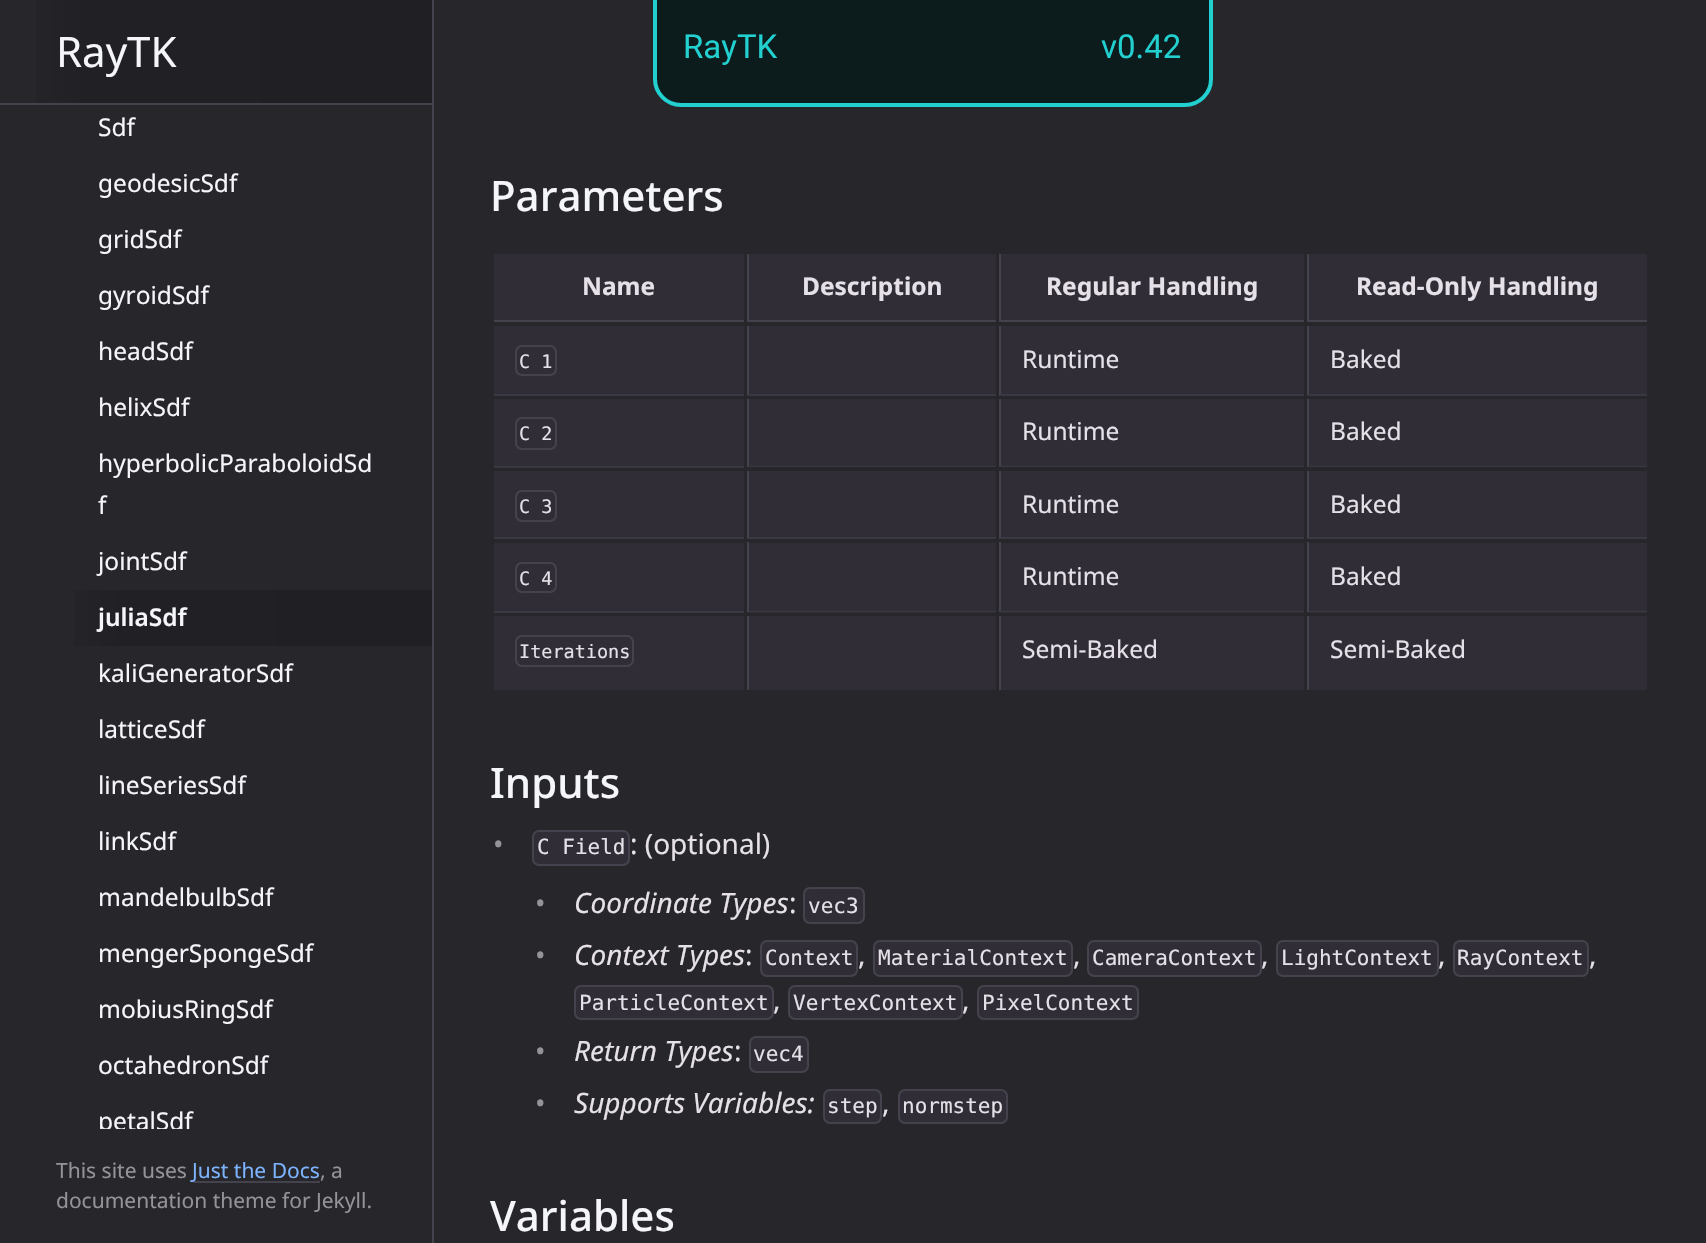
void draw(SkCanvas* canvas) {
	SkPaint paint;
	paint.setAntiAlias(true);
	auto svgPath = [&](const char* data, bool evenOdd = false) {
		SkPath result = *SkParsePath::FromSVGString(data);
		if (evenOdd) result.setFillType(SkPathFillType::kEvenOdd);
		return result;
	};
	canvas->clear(0xff27262b);
	paint.setColor(0xff36353c);
	canvas->drawRect(SkRect::MakeXYWH(494, 467, 250, 1), paint);
	paint.setColor(0xff44434d);
	canvas->drawRect(SkRect::MakeXYWH(432, 0, 2, 1243), paint);
	canvas->drawRect(SkRect::MakeXYWH(0, 103, 432, 2), paint);
	{
		const SkColor colors[] = {0xff201f23, 0xff212025, 0xff27262b};
		const float stops[] = {0, 0.8, 1};
		const SkPoint ends[] = {{432, 52}, {0, 52}};
		paint.setShader(SkGradientShader::MakeLinear(ends, colors, stops, 3, SkTileMode::kClamp));
		paint.setAlpha(255);
	}
	canvas->drawRect(SkRect::MakeXYWH(36, 0, 396, 103), paint);
	SkFont f1(fontMgr->matchFamilyStyle("Noto Sans", SkFontStyle::Normal()), 42);
	f1.setSubpixel(true);
	paint.setShader(nullptr);
	paint.setColor(0xfff5f6fa);
	canvas->drawString("RayTK", 56, 67, f1, paint);
	SkFont f2(fontMgr->matchFamilyStyle("Noto Sans", SkFontStyle::Normal()), 24.5);
	f2.setSubpixel(true);
	canvas->drawString("Sdf", 98, 136, f2, paint);
	canvas->drawString("geodesicSdf", 98, 192, f2, paint);
	canvas->drawString("gridSdf", 98, 248, f2, paint);
	canvas->drawString("gyroidSdf", 98, 304, f2, paint);
	canvas->drawString("headSdf", 98, 360, f2, paint);
	canvas->drawString("helixSdf", 98, 416, f2, paint);
	canvas->drawString("hyperbolicParaboloidSd", 98, 472, f2, paint);
	canvas->drawString("f", 98, 514, f2, paint);
	canvas->drawString("jointSdf", 98, 570, f2, paint);
	{
		const SkColor colors[] = {0xff201f23, 0xff212025, 0xff27262b};
		const float stops[] = {0, 0.8, 1};
		const SkPoint ends[] = {{432, 618}, {42, 618}};
		paint.setShader(SkGradientShader::MakeLinear(ends, colors, stops, 3, SkTileMode::kClamp));
		paint.setAlpha(255);
	}
	canvas->drawRect(SkRect::MakeXYWH(74, 590, 358, 56), paint);
	SkFont f3(fontMgr->matchFamilyStyle("Noto Sans", SkFontStyle(600, SkFontStyle::kNormal_Width, SkFontStyle::kUpright_Slant)), 24.5);
	f3.setSubpixel(true);
	paint.setShader(nullptr);
	paint.setColor(0xfff5f6fa);
	canvas->drawString("juliaSdf", 98, 626, f3, paint);
	canvas->drawString("kaliGeneratorSdf", 98, 682, f2, paint);
	canvas->drawString("latticeSdf", 98, 738, f2, paint);
	canvas->drawString("lineSeriesSdf", 98, 794, f2, paint);
	canvas->drawString("linkSdf", 98, 850, f2, paint);
	canvas->drawString("mandelbulbSdf", 98, 906, f2, paint);
	canvas->drawString("mengerSpongeSdf", 98, 962, f2, paint);
	canvas->drawString("mobiusRingSdf", 98, 1018, f2, paint);
	canvas->drawString("octahedronSdf", 98, 1074, f2, paint);
	canvas->save();
	canvas->clipRect(SkRect::MakeXYWH(0, 105, 432, 1024));
	canvas->drawString("petalSdf", 98, 1130, f2, paint);
	canvas->restore();
	SkFont f4(fontMgr->matchFamilyStyle("Noto Sans", SkFontStyle::Normal()), 21);
	f4.setSubpixel(true);
	paint.setColor(0xff959396);
	canvas->drawString("This site uses", 56, 1178, f4, paint);
	paint.setColor(0xff44434d);
	canvas->drawRect(SkRect::MakeXYWH(193, 1181, 127, 2), paint);
	paint.setColor(0xff7cb3fd);
	canvas->drawString("Just the Docs", 192, 1178, f4, paint);
	paint.setColor(0xff959396);
	canvas->drawString(", a", 320, 1178, f4, paint);
	canvas->drawString("documentation theme for Jekyll.", 56, 1208, f4, paint);
	paint.setColor(0xff0c1c1d);
	canvas->drawRoundRect(SkRect::MakeXYWH(655, -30, 556, 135), 26, 26, paint);
	paint.setStroke(true);
	paint.setStrokeWidth(4);
	paint.setColor(0xff22d0d0);
	canvas->drawRoundRect(SkRect::MakeXYWH(655, -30, 556, 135), 26, 26, paint);
	SkFont f5(fontMgr->matchFamilyStyle("Roboto", SkFontStyle::Normal()), 33);
	f5.setSubpixel(true);
	paint.setStroke(false);
	canvas->drawString("RayTK", 683, 58, f5, paint);
	canvas->drawString("v0.42", 1101, 58, f5, paint);
	SkFont f6(fontMgr->matchFamilyStyle("Noto Sans", SkFontStyle(500, SkFontStyle::kNormal_Width, SkFontStyle::kUpright_Slant)), 42);
	f6.setSubpixel(true);
	paint.setColor(0xfff5f6fa);
	canvas->drawString("Parameters", 490, 211, f6, paint);
	paint.setColor(0xff302d36);
	canvas->drawRect(SkRect::MakeXYWH(494, 254, 250, 66), paint);
	paint.setColor(0xff44434d);
	canvas->drawRect(SkRect::MakeXYWH(494, 320, 250, 2), paint);
	SkFont f7(fontMgr->matchFamilyStyle("Noto Sans", SkFontStyle::Bold()), 24.5);
	f7.setSubpixel(true);
	paint.setColor(0xffe6e1e8);
	canvas->drawString("Name", 582, 295, f7, paint);
	paint.setColor(0xff302d36);
	canvas->drawRect(SkRect::MakeXYWH(749, 254, 247, 66), paint);
	paint.setColor(0xff44434d);
	canvas->drawRect(SkRect::MakeXYWH(747, 320, 249, 2), paint);
	canvas->drawRect(SkRect::MakeXYWH(747, 254, 2, 68), paint);
	paint.setColor(0xffe6e1e8);
	canvas->drawString("Description", 802, 295, f7, paint);
	paint.setColor(0xff302d36);
	canvas->drawRect(SkRect::MakeXYWH(1001, 254, 303, 66), paint);
	paint.setColor(0xff44434d);
	canvas->drawRect(SkRect::MakeXYWH(999, 320, 305, 2), paint);
	canvas->drawRect(SkRect::MakeXYWH(999, 254, 2, 68), paint);
	paint.setColor(0xffe6e1e8);
	canvas->drawString("Regular Handling", 1046, 295, f7, paint);
	paint.setColor(0xff302d36);
	canvas->drawRect(SkRect::MakeXYWH(1309, 254, 338, 66), paint);
	paint.setColor(0xff44434d);
	canvas->drawRect(SkRect::MakeXYWH(1307, 320, 340, 2), paint);
	canvas->drawRect(SkRect::MakeXYWH(1307, 254, 2, 68), paint);
	paint.setColor(0xffe6e1e8);
	canvas->drawString("Read-Only Handling", 1356, 295, f7, paint);
	paint.setColor(0xff302d36);
	canvas->drawRect(SkRect::MakeXYWH(494, 326, 250, 68), paint);
	paint.setColor(0xff3a3842);
	canvas->drawRect(SkRect::MakeXYWH(494, 394, 250, 2), paint);
	paint.setStroke(true);
	paint.setStrokeWidth(2);
	paint.setColor(0xff44434d);
	canvas->drawRoundRect(SkRect::MakeXYWH(516, 346, 40, 29), 6, 6, paint);
	SkFont f8(fontMgr->matchFamilyStyle("DejaVu Sans Mono", SkFontStyle::Normal()), 18.5);
	f8.setSubpixel(true);
	paint.setStroke(false);
	paint.setColor(0xffe6e1e8);
	canvas->drawString("C 1", 519, 368, f8, paint);
	paint.setColor(0xff302d36);
	canvas->drawRect(SkRect::MakeXYWH(747, 326, 249, 70), paint);
	paint.setColor(0xff3a3842);
	canvas->drawPath(svgPath("M996 396H747L749 394H996Z"), paint);
	paint.setColor(0xff44434d);
	canvas->drawPath(svgPath("M747 396V326H749V394Z"), paint);
	paint.setColor(0xff302d36);
	canvas->drawRect(SkRect::MakeXYWH(999, 326, 305, 70), paint);
	paint.setColor(0xff3a3842);
	canvas->drawPath(svgPath("M1304 396H999L1001 394H1304Z"), paint);
	paint.setColor(0xff44434d);
	canvas->drawPath(svgPath("M999 396V326H1001V394Z"), paint);
	paint.setColor(0xffe6e1e8);
	canvas->drawString("Runtime", 1022, 368, f2, paint);
	paint.setColor(0xff302d36);
	canvas->drawRect(SkRect::MakeXYWH(1307, 326, 340, 70), paint);
	paint.setColor(0xff3a3842);
	canvas->drawPath(svgPath("M1647 396H1307L1309 394H1647Z"), paint);
	paint.setColor(0xff44434d);
	canvas->drawPath(svgPath("M1307 396V326H1309V394Z"), paint);
	paint.setColor(0xffe6e1e8);
	canvas->drawString("Baked", 1330, 368, f2, paint);
	paint.setColor(0xff302d36);
	canvas->drawRect(SkRect::MakeXYWH(494, 399, 250, 67), paint);
	paint.setColor(0xff3a3842);
	canvas->drawRect(SkRect::MakeXYWH(494, 466, 250, 1), paint);
	paint.setStroke(true);
	paint.setColor(0xff44434d);
	canvas->drawRoundRect(SkRect::MakeXYWH(516, 418, 40, 31), 6, 6, paint);
	paint.setStroke(false);
	paint.setColor(0xffe6e1e8);
	canvas->drawString("C 2", 519, 440, f8, paint);
	paint.setColor(0xff302d36);
	canvas->drawRect(SkRect::MakeXYWH(747, 399, 249, 68), paint);
	paint.setColor(0xff3a3842);
	canvas->drawPath(svgPath("M996 467H747L749 466H996Z"), paint);
	paint.setColor(0xff44434d);
	canvas->drawPath(svgPath("M747 467V399H749V466Z"), paint);
	paint.setColor(0xff302d36);
	canvas->drawRect(SkRect::MakeXYWH(999, 399, 305, 68), paint);
	paint.setColor(0xff3a3842);
	canvas->drawPath(svgPath("M1304 467H999L1001 466H1304Z"), paint);
	paint.setColor(0xff44434d);
	canvas->drawPath(svgPath("M999 467V399H1001V466Z"), paint);
	paint.setColor(0xffe6e1e8);
	canvas->drawString("Runtime", 1022, 440, f2, paint);
	paint.setColor(0xff302d36);
	canvas->drawRect(SkRect::MakeXYWH(1307, 399, 340, 68), paint);
	paint.setColor(0xff3a3842);
	canvas->drawPath(svgPath("M1647 467H1307L1309 466H1647Z"), paint);
	paint.setColor(0xff44434d);
	canvas->drawPath(svgPath("M1307 467V399H1309V466Z"), paint);
	paint.setColor(0xffe6e1e8);
	canvas->drawString("Baked", 1330, 440, f2, paint);
	paint.setColor(0xff302d36);
	canvas->drawRect(SkRect::MakeXYWH(494, 471, 250, 66), paint);
	paint.setColor(0xff3a3842);
	canvas->drawRect(SkRect::MakeXYWH(494, 537, 250, 2), paint);
	paint.setStroke(true);
	paint.setColor(0xff44434d);
	canvas->drawRoundRect(SkRect::MakeXYWH(516, 491, 40, 30), 6, 6, paint);
	paint.setStroke(false);
	paint.setColor(0xffe6e1e8);
	canvas->drawString("C 3", 519, 513, f8, paint);
	paint.setColor(0xff302d36);
	canvas->drawRect(SkRect::MakeXYWH(747, 471, 249, 68), paint);
	paint.setColor(0xff3a3842);
	canvas->drawPath(svgPath("M996 539H747L749 537H996Z"), paint);
	paint.setColor(0xff44434d);
	canvas->drawPath(svgPath("M747 539V471H749V537Z"), paint);
	paint.setColor(0xff302d36);
	canvas->drawRect(SkRect::MakeXYWH(999, 471, 305, 68), paint);
	paint.setColor(0xff3a3842);
	canvas->drawPath(svgPath("M1304 539H999L1001 537H1304Z"), paint);
	paint.setColor(0xff44434d);
	canvas->drawPath(svgPath("M999 539V471H1001V537Z"), paint);
	paint.setColor(0xffe6e1e8);
	canvas->drawString("Runtime", 1022, 513, f2, paint);
	paint.setColor(0xff302d36);
	canvas->drawRect(SkRect::MakeXYWH(1307, 471, 340, 68), paint);
	paint.setColor(0xff3a3842);
	canvas->drawPath(svgPath("M1647 539H1307L1309 537H1647Z"), paint);
	paint.setColor(0xff44434d);
	canvas->drawPath(svgPath("M1307 539V471H1309V537Z"), paint);
	paint.setColor(0xffe6e1e8);
	canvas->drawString("Baked", 1330, 513, f2, paint);
	paint.setColor(0xff302d36);
	canvas->drawRect(SkRect::MakeXYWH(494, 543, 250, 68), paint);
	paint.setColor(0xff3a3842);
	canvas->drawRect(SkRect::MakeXYWH(494, 611, 250, 2), paint);
	paint.setStroke(true);
	paint.setColor(0xff44434d);
	canvas->drawRoundRect(SkRect::MakeXYWH(516, 563, 40, 29), 6, 6, paint);
	paint.setStroke(false);
	paint.setColor(0xffe6e1e8);
	canvas->drawString("C 4", 519, 585, f8, paint);
	paint.setColor(0xff302d36);
	canvas->drawRect(SkRect::MakeXYWH(747, 543, 249, 70), paint);
	paint.setColor(0xff3a3842);
	canvas->drawPath(svgPath("M996 612H747L749 611H996Z"), paint);
	paint.setColor(0xff44434d);
	canvas->drawPath(svgPath("M747 612V542H749V611Z"), paint);
	paint.setColor(0xff302d36);
	canvas->drawRect(SkRect::MakeXYWH(999, 543, 305, 70), paint);
	paint.setColor(0xff3a3842);
	canvas->drawPath(svgPath("M1304 612H999L1001 611H1304Z"), paint);
	paint.setColor(0xff44434d);
	canvas->drawPath(svgPath("M999 612V542H1001V611Z"), paint);
	paint.setColor(0xffe6e1e8);
	canvas->drawString("Runtime", 1022, 585, f2, paint);
	paint.setColor(0xff302d36);
	canvas->drawRect(SkRect::MakeXYWH(1307, 543, 340, 70), paint);
	paint.setColor(0xff3a3842);
	canvas->drawPath(svgPath("M1647 612H1307L1309 611H1647Z"), paint);
	paint.setColor(0xff44434d);
	canvas->drawPath(svgPath("M1307 612V542H1309V611Z"), paint);
	paint.setColor(0xffe6e1e8);
	canvas->drawString("Baked", 1330, 585, f2, paint);
	paint.setColor(0xff302d36);
	canvas->drawRect(SkRect::MakeXYWH(494, 616, 250, 74), paint);
	paint.setStroke(true);
	paint.setColor(0xff44434d);
	canvas->drawRoundRect(SkRect::MakeXYWH(516, 636, 117, 30), 6, 6, paint);
	paint.setStroke(false);
	paint.setColor(0xffe6e1e8);
	canvas->drawString("Iterations", 519, 658, f8, paint);
	paint.setColor(0xff302d36);
	canvas->drawRect(SkRect::MakeXYWH(749, 616, 247, 74), paint);
	paint.setColor(0xff44434d);
	canvas->drawRect(SkRect::MakeXYWH(747, 616, 2, 74), paint);
	paint.setColor(0xff302d36);
	canvas->drawRect(SkRect::MakeXYWH(1001, 616, 303, 74), paint);
	paint.setColor(0xff44434d);
	canvas->drawRect(SkRect::MakeXYWH(999, 616, 2, 74), paint);
	paint.setColor(0xffe6e1e8);
	canvas->drawString("Semi-Baked", 1022, 658, f2, paint);
	paint.setColor(0xff302d36);
	canvas->drawRect(SkRect::MakeXYWH(1309, 616, 338, 74), paint);
	paint.setColor(0xff44434d);
	canvas->drawRect(SkRect::MakeXYWH(1307, 616, 2, 74), paint);
	paint.setColor(0xffe6e1e8);
	canvas->drawString("Semi-Baked", 1330, 658, f2, paint);
	paint.setColor(0xfff5f6fa);
	canvas->drawString("Inputs", 490, 798, f6, paint);
	SkFont f9(fontMgr->matchFamilyStyle("Noto Sans", SkFontStyle::Normal()), 28);
	f9.setSubpixel(true);
	paint.setColor(0xff959396);
	canvas->drawString("•", 493, 854, f9, paint);
	paint.setColor(0xff302d36);
	canvas->drawRoundRect(SkRect::MakeXYWH(533, 831, 96, 34), 6, 6, paint);
	paint.setStroke(true);
	paint.setColor(0xff44434d);
	canvas->drawRoundRect(SkRect::MakeXYWH(533, 831, 96, 34), 6, 6, paint);
	SkFont f10(fontMgr->matchFamilyStyle("DejaVu Sans Mono", SkFontStyle::Normal()), 21);
	f10.setSubpixel(true);
	paint.setStroke(false);
	paint.setColor(0xffe6e1e8);
	canvas->drawString("C Field", 537, 854, f10, paint);
	canvas->drawString(": (optional)", 630, 854, f9, paint);
	paint.setColor(0xff959396);
	canvas->drawString("•", 535, 913, f9, paint);
	SkFont f11(fontMgr->matchFamilyStyle("Noto Sans", SkFontStyle::Italic()), 28);
	f11.setSubpixel(true);
	paint.setColor(0xffe6e1e8);
	canvas->drawString("Coordinate Types", 574, 913, f11, paint);
	canvas->drawString(":", 789, 913, f9, paint);
	paint.setColor(0xff302d36);
	canvas->drawRoundRect(SkRect::MakeXYWH(804, 888, 60, 35), 6, 6, paint);
	paint.setStroke(true);
	paint.setColor(0xff44434d);
	canvas->drawRoundRect(SkRect::MakeXYWH(804, 888, 60, 35), 6, 6, paint);
	paint.setStroke(false);
	paint.setColor(0xffe6e1e8);
	canvas->drawString("vec3", 808, 913, f10, paint);
	paint.setColor(0xff959396);
	canvas->drawString("•", 535, 965, f9, paint);
	paint.setColor(0xffe6e1e8);
	canvas->drawString("Context Types", 574, 965, f11, paint);
	canvas->drawString(":", 745, 965, f9, paint);
	paint.setColor(0xff302d36);
	canvas->drawRoundRect(SkRect::MakeXYWH(761, 941, 96, 35), 6, 6, paint);
	paint.setStroke(true);
	paint.setColor(0xff44434d);
	canvas->drawRoundRect(SkRect::MakeXYWH(761, 941, 96, 35), 6, 6, paint);
	paint.setStroke(false);
	paint.setColor(0xffe6e1e8);
	canvas->drawString("Context", 765, 965, f10, paint);
	paint.setColor(0xff302d36);
	canvas->drawRoundRect(SkRect::MakeXYWH(874, 941, 198, 35), 6, 6, paint);
	paint.setStroke(true);
	paint.setColor(0xff44434d);
	canvas->drawRoundRect(SkRect::MakeXYWH(874, 941, 198, 35), 6, 6, paint);
	paint.setStroke(false);
	paint.setColor(0xffe6e1e8);
	canvas->drawString("MaterialContext", 878, 965, f10, paint);
	paint.setColor(0xff302d36);
	canvas->drawRoundRect(SkRect::MakeXYWH(1088, 941, 173, 35), 6, 6, paint);
	paint.setStroke(true);
	paint.setColor(0xff44434d);
	canvas->drawRoundRect(SkRect::MakeXYWH(1088, 941, 173, 35), 6, 6, paint);
	paint.setStroke(false);
	paint.setColor(0xffe6e1e8);
	canvas->drawString("CameraContext", 1092, 965, f10, paint);
	paint.setColor(0xff302d36);
	canvas->drawRoundRect(SkRect::MakeXYWH(1277, 941, 161, 35), 6, 6, paint);
	paint.setStroke(true);
	paint.setColor(0xff44434d);
	canvas->drawRoundRect(SkRect::MakeXYWH(1277, 941, 161, 35), 6, 6, paint);
	paint.setStroke(false);
	paint.setColor(0xffe6e1e8);
	canvas->drawString("LightContext", 1281, 965, f10, paint);
	paint.setColor(0xff302d36);
	canvas->drawRoundRect(SkRect::MakeXYWH(1454, 941, 134, 35), 6, 6, paint);
	paint.setStroke(true);
	paint.setColor(0xff44434d);
	canvas->drawRoundRect(SkRect::MakeXYWH(1454, 941, 134, 35), 6, 6, paint);
	paint.setStroke(false);
	paint.setColor(0xffe6e1e8);
	canvas->drawString("RayContext", 1457, 965, f10, paint);
	canvas->drawString(",", 858, 965, f9, paint);
	canvas->drawString(",", 1073, 965, f9, paint);
	canvas->drawString(",", 1261, 965, f9, paint);
	canvas->drawString(",", 1438, 965, f9, paint);
	canvas->drawString(",", 1589, 965, f9, paint);
	paint.setColor(0xff302d36);
	canvas->drawRoundRect(SkRect::MakeXYWH(575, 986, 198, 33), 6, 6, paint);
	paint.setStroke(true);
	paint.setColor(0xff44434d);
	canvas->drawRoundRect(SkRect::MakeXYWH(575, 986, 198, 33), 6, 6, paint);
	paint.setStroke(false);
	paint.setColor(0xffe6e1e8);
	canvas->drawString("ParticleContext", 579, 1010, f10, paint);
	canvas->drawString(",", 773, 1010, f9, paint);
	paint.setColor(0xff302d36);
	canvas->drawRoundRect(SkRect::MakeXYWH(789, 986, 173, 33), 6, 6, paint);
	paint.setStroke(true);
	paint.setColor(0xff44434d);
	canvas->drawRoundRect(SkRect::MakeXYWH(789, 986, 173, 33), 6, 6, paint);
	paint.setStroke(false);
	paint.setColor(0xffe6e1e8);
	canvas->drawString("VertexContext", 793, 1010, f10, paint);
	canvas->drawString(",", 962, 1010, f9, paint);
	paint.setColor(0xff302d36);
	canvas->drawRoundRect(SkRect::MakeXYWH(978, 986, 160, 33), 6, 6, paint);
	paint.setStroke(true);
	paint.setColor(0xff44434d);
	canvas->drawRoundRect(SkRect::MakeXYWH(978, 986, 160, 33), 6, 6, paint);
	paint.setStroke(false);
	paint.setColor(0xffe6e1e8);
	canvas->drawString("PixelContext", 982, 1010, f10, paint);
	paint.setColor(0xff959396);
	canvas->drawString("•", 535, 1061, f9, paint);
	paint.setColor(0xffe6e1e8);
	canvas->drawString("Return Types", 574, 1061, f11, paint);
	canvas->drawString(":", 734, 1061, f9, paint);
	paint.setColor(0xff302d36);
	canvas->drawRoundRect(SkRect::MakeXYWH(750, 1037, 58, 35), 6, 6, paint);
	paint.setStroke(true);
	paint.setColor(0xff44434d);
	canvas->drawRoundRect(SkRect::MakeXYWH(750, 1037, 58, 35), 6, 6, paint);
	paint.setStroke(false);
	paint.setColor(0xffe6e1e8);
	canvas->drawString("vec4", 753, 1061, f10, paint);
	paint.setColor(0xff959396);
	canvas->drawString("•", 535, 1113, f9, paint);
	paint.setColor(0xffe6e1e8);
	canvas->drawString("Supports Variables:", 574, 1113, f11, paint);
	paint.setColor(0xff302d36);
	canvas->drawRoundRect(SkRect::MakeXYWH(824, 1090, 57, 33), 6, 6, paint);
	paint.setStroke(true);
	paint.setColor(0xff44434d);
	canvas->drawRoundRect(SkRect::MakeXYWH(824, 1090, 57, 33), 6, 6, paint);
	paint.setStroke(false);
	paint.setColor(0xffe6e1e8);
	canvas->drawString("step", 827, 1113, f10, paint);
	paint.setColor(0xff302d36);
	canvas->drawRoundRect(SkRect::MakeXYWH(899, 1090, 108, 33), 6, 6, paint);
	paint.setStroke(true);
	paint.setColor(0xff44434d);
	canvas->drawRoundRect(SkRect::MakeXYWH(899, 1090, 108, 33), 6, 6, paint);
	paint.setStroke(false);
	paint.setColor(0xffe6e1e8);
	canvas->drawString("normstep", 902, 1113, f10, paint);
	canvas->drawString(",", 882, 1113, f9, paint);
	paint.setColor(0xfff5f6fa);
	canvas->drawString("Variables", 490, 1231, f6, paint);
}
